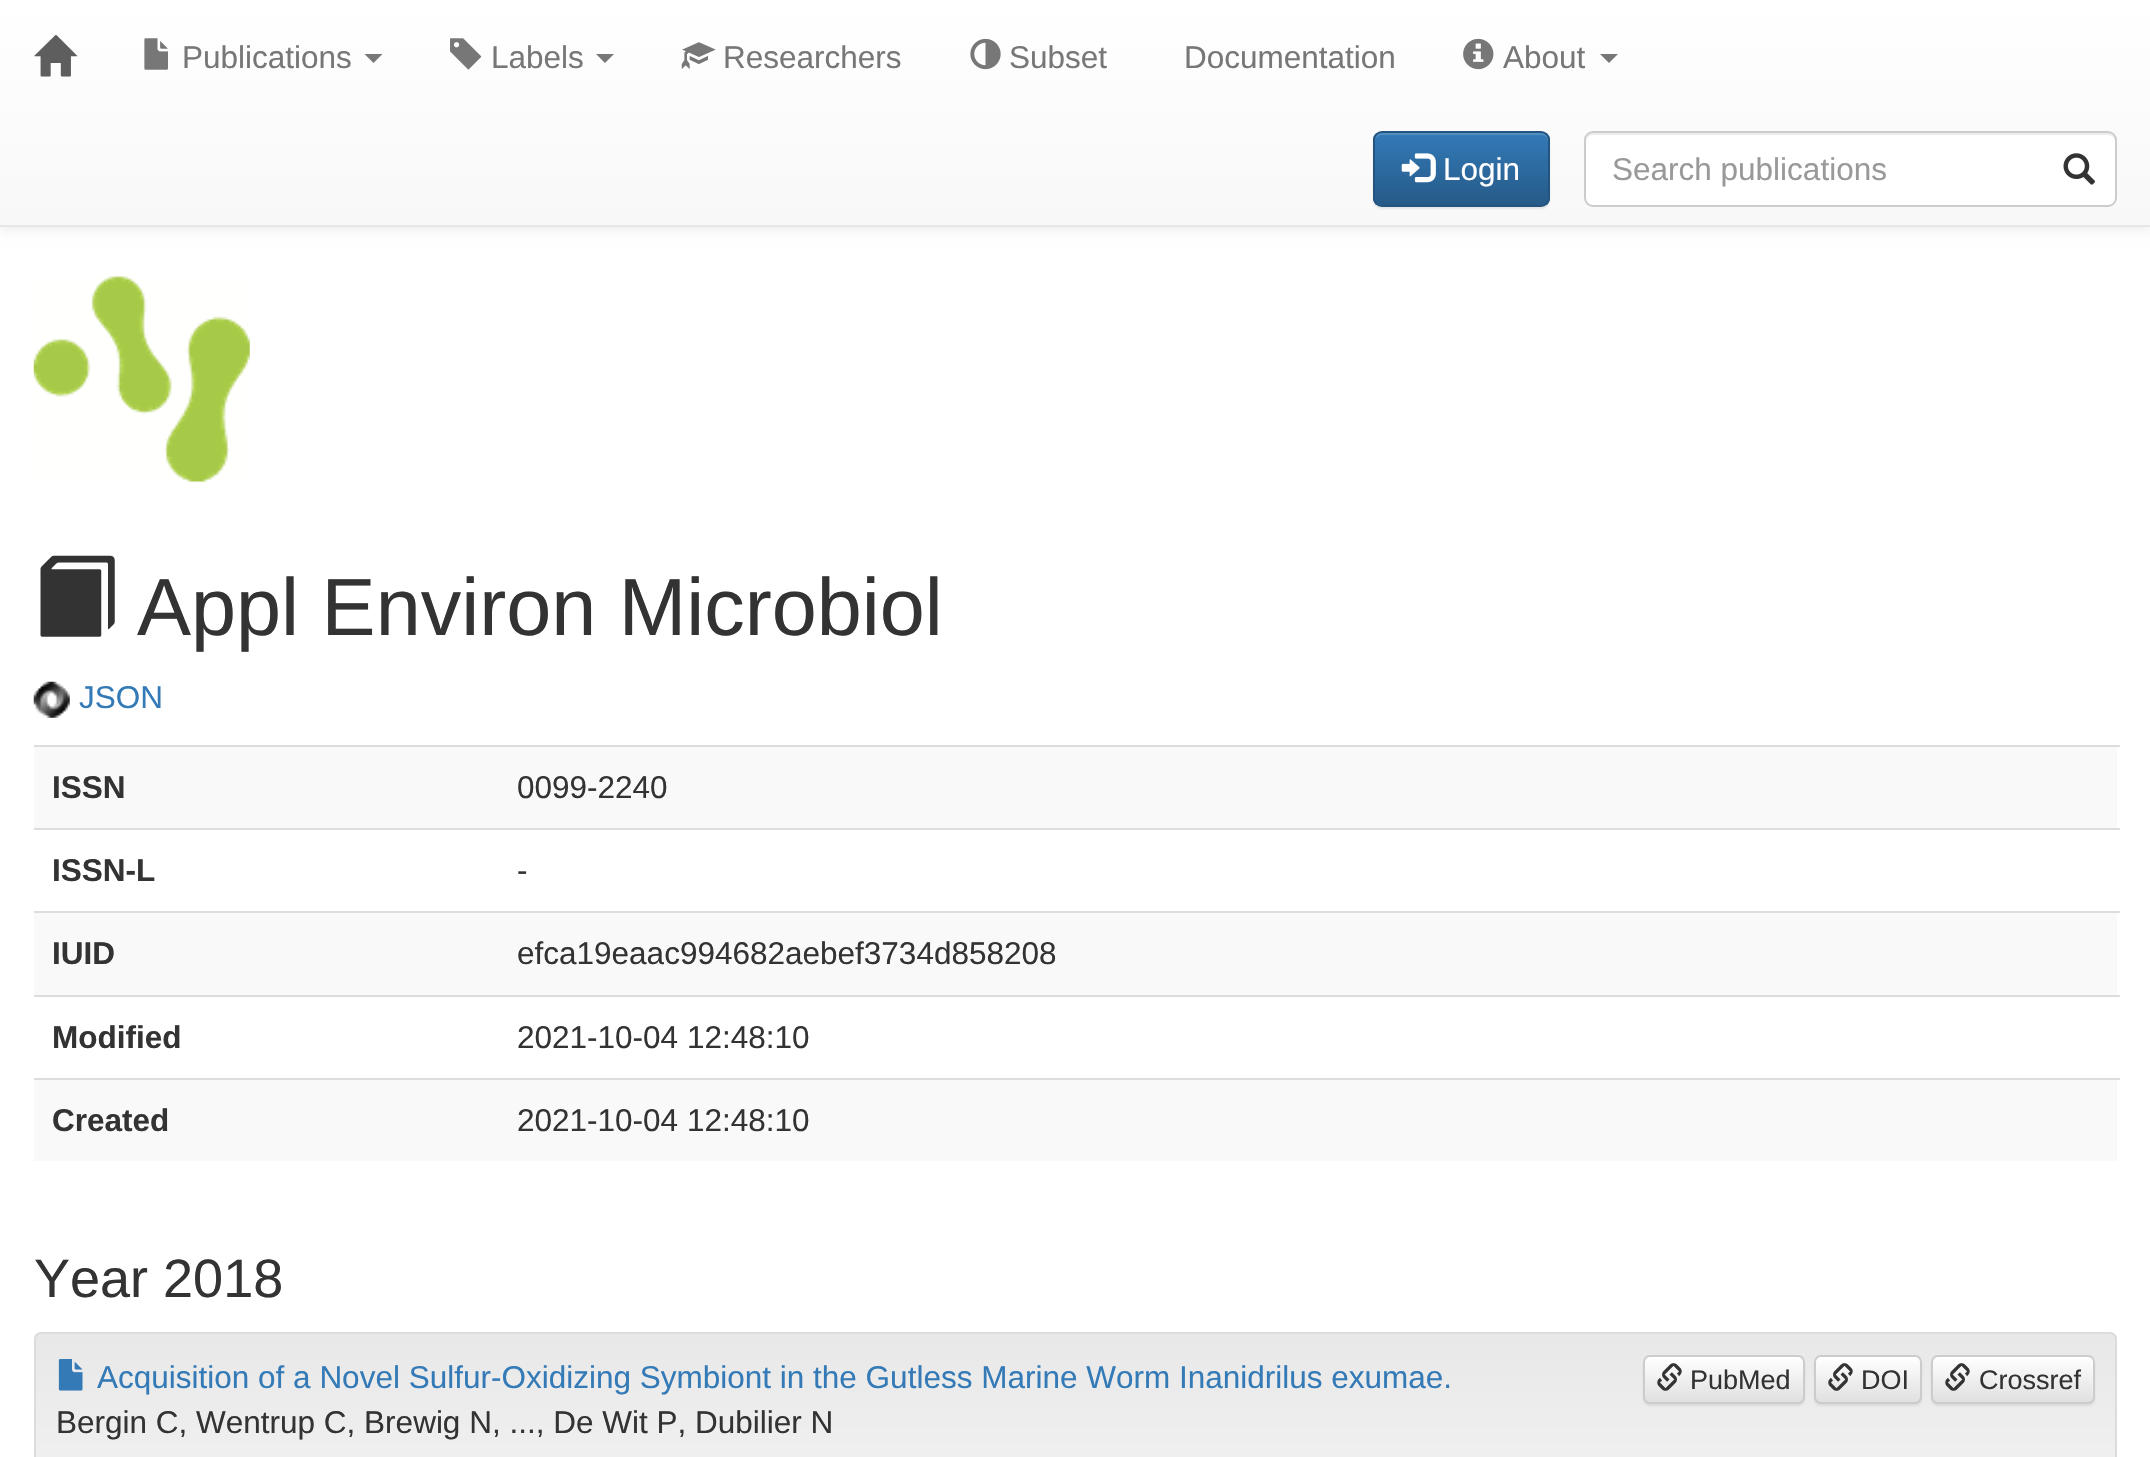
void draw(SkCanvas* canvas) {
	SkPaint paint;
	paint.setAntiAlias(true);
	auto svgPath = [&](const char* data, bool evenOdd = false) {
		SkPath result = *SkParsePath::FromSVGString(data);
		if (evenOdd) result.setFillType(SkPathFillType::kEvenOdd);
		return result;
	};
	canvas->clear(0xffffffff);
	paint.setColor(0x12000000);
	paint.setMaskFilter(SkMaskFilter::MakeBlur(kNormal_SkBlurStyle, 5.5));
	canvas->drawRect(SkRect::MakeXYWH(0, 2, 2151, 228), paint);
	paint.setMaskFilter(nullptr);
	{
		const SkColor colors[] = {0xffffffff, 0xfff8f8f8};
		const float stops[] = {0, 1};
		const SkPoint ends[] = {{1076, 0}, {1076, 225}};
		paint.setShader(SkGradientShader::MakeLinear(ends, colors, stops, 2, SkTileMode::kClamp));
		paint.setAlpha(255);
	}
	canvas->drawRect(SkRect::MakeXYWH(0, 0, 2150, 225), paint);
	paint.setShader(nullptr);
	paint.setColor(0xffe7e7e7);
	canvas->drawRect(SkRect::MakeXYWH(0, 225, 2150, 2), paint);
	canvas->drawImageRect(SkImages::DeferredFromEncodedData(SkData::MakeFromFileName("img1.png")), SkRect::MakeXYWH(34, 35, 44, 42), SkSamplingOptions());
	canvas->drawImageRect(SkImages::DeferredFromEncodedData(SkData::MakeFromFileName("img2.png")), SkRect::MakeXYWH(144, 38, 24, 32), SkSamplingOptions());
	SkFont f1(fontMgr->matchFamilyStyle("Liberation Sans", SkFontStyle::Normal()), 31.5);
	f1.setSubpixel(true);
	paint.setColor(0xff777777);
	canvas->drawString("Publications", 182, 68, f1, paint);
	canvas->drawPath(svgPath("M364.5 54H382.5L373.5 63Z"), paint);
	canvas->drawImageRect(SkImages::DeferredFromEncodedData(SkData::MakeFromFileName("img3.png")), SkRect::MakeXYWH(450, 38, 32, 32), SkSamplingOptions());
	canvas->drawString("Labels", 491, 68, f1, paint);
	canvas->drawPath(svgPath("M596 54H614L605 63Z"), paint);
	canvas->drawImageRect(SkImages::DeferredFromEncodedData(SkData::MakeFromFileName("img4.png")), SkRect::MakeXYWH(681, 42, 35, 27), SkSamplingOptions());
	canvas->drawString("Researchers", 723, 68, f1, paint);
	canvas->drawImageRect(SkImages::DeferredFromEncodedData(SkData::MakeFromFileName("img5.png")), SkRect::MakeXYWH(970, 38, 31, 32), SkSamplingOptions());
	canvas->drawString("Subset", 1009, 68, f1, paint);
	canvas->drawString("Documentation", 1184, 68, f1, paint);
	canvas->drawImageRect(SkImages::DeferredFromEncodedData(SkData::MakeFromFileName("img6.png")), SkRect::MakeXYWH(1463, 38, 31, 32), SkSamplingOptions());
	canvas->drawString("About", 1503, 68, f1, paint);
	canvas->drawPath(svgPath("M1600 54H1618L1609 63Z"), paint);
	paint.setColor(0x12000000);
	paint.setMaskFilter(SkMaskFilter::MakeBlur(kNormal_SkBlurStyle, 1));
	canvas->drawRoundRect(SkRect::MakeXYWH(1373, 133, 177, 76), 9, 9, paint);
	paint.setMaskFilter(nullptr);
	canvas->save();
	canvas->clipPath(svgPath("M1382 131H1541C1546 131 1550 135 1550 140V198C1550 203 1546 207 1541 207H1382C1377 207 1373 203 1373 198V140C1373 135 1377 131 1382 131Z"), true);
	{
		const SkColor colors[] = {0xff337ab7, 0xff265a88};
		const float stops[] = {0, 1};
		const SkPoint ends[] = {{1461, 133}, {1461, 205}};
		paint.setShader(SkGradientShader::MakeLinear(ends, colors, stops, 2, SkTileMode::kClamp));
		paint.setAlpha(255);
	}
	canvas->drawRect(SkRect::MakeXYWH(1373, 133, 177, 72), paint);
	canvas->restore();
	paint.setShader(nullptr);
	paint.setColor(0x26ffffff);
	canvas->drawPath(svgPath("M1382 135H1541C1545 135 1548 138 1548 142V140C1548 136 1545 133 1541 133H1382C1378 133 1375 136 1375 140V142C1375 138 1378 135 1382 135Z"), paint);
	paint.setStroke(true);
	paint.setStrokeWidth(2);
	paint.setColor(0xff245580);
	canvas->drawRoundRect(SkRect::MakeXYWH(1374, 132, 175, 74), 8, 8, paint);
	canvas->drawImageRect(SkImages::DeferredFromEncodedData(SkData::MakeFromFileName("img7.png")), SkRect::MakeXYWH(1401, 153, 35, 30), SkSamplingOptions());
	paint.setStroke(false);
	paint.setColor(0xffffffff);
	canvas->drawString("Login", 1443, 180, f1, paint);
	canvas->drawRoundRect(SkRect::MakeXYWH(1584, 131, 533, 76), 9, 9, paint);
	paint.setColor(0xffececec);
	canvas->drawPath(svgPath("M1593 135H2108C2112 135 2115 138 2115 142C2115 138 2113 133 2108 133H1593C1588 133 1586 138 1586 142C1586 138 1589 135 1593 135Z"), paint);
	paint.setStroke(true);
	paint.setColor(0xffcccccc);
	canvas->drawRoundRect(SkRect::MakeXYWH(1585, 132, 531, 74), 8, 8, paint);
	paint.setStroke(false);
	paint.setColor(0xff999999);
	canvas->drawString("Search publications", 1612, 180, f1, paint);
	canvas->drawImageRect(SkImages::DeferredFromEncodedData(SkData::MakeFromFileName("img8.png")), SkRect::MakeXYWH(2063, 153, 32, 32), SkSamplingOptions());
	canvas->drawImageRect(SkImages::DeferredFromEncodedData(SkData::MakeFromFileName("img9.png")), SkRect::MakeXYWH(33, 276, 217, 207), SkSamplingOptions());
	canvas->drawImageRect(SkImages::DeferredFromEncodedData(SkData::MakeFromFileName("img10.png")), SkRect::MakeXYWH(40, 555, 75, 82), SkSamplingOptions());
	SkFont f2(fontMgr->matchFamilyStyle("Liberation Sans", SkFontStyle::Normal()), 81);
	f2.setSubpixel(true);
	paint.setColor(0xff333333);
	canvas->drawString("Appl Environ Microbiol", 137, 635, f2, paint);
	canvas->drawImageRect(SkImages::DeferredFromEncodedData(SkData::MakeFromFileName("img11.png")), SkRect::MakeXYWH(33, 681, 37, 37), SkSamplingOptions());
	paint.setColor(0xff337ab7);
	canvas->drawString("JSON", 79, 708, f1, paint);
	paint.setColor(0xfff9f9f9);
	canvas->drawRect(SkRect::MakeXYWH(34, 747, 2083, 81), paint);
	SkFont f3(fontMgr->matchFamilyStyle("Liberation Sans", SkFontStyle::Bold()), 31.5);
	f3.setSubpixel(true);
	paint.setColor(0xff333333);
	canvas->drawString("ISSN", 52, 798, f3, paint);
	paint.setColor(0xffdddddd);
	canvas->drawRect(SkRect::MakeXYWH(34, 745, 2086, 2), paint);
	paint.setColor(0xff333333);
	canvas->drawString("0099-2240", 517, 798, f1, paint);
	canvas->drawString("ISSN-L", 52, 881, f3, paint);
	paint.setColor(0xffdddddd);
	canvas->drawRect(SkRect::MakeXYWH(34, 828, 2086, 2), paint);
	paint.setColor(0xff333333);
	canvas->drawString("-", 517, 881, f1, paint);
	paint.setColor(0xfff9f9f9);
	canvas->drawRect(SkRect::MakeXYWH(34, 913, 2083, 82), paint);
	paint.setColor(0xff333333);
	canvas->drawString("IUID", 52, 964, f3, paint);
	paint.setColor(0xffdddddd);
	canvas->drawRect(SkRect::MakeXYWH(34, 911, 2086, 2), paint);
	paint.setColor(0xff333333);
	canvas->drawString("efca19eaac994682aebef3734d858208", 517, 964, f1, paint);
	canvas->drawString("Modified", 52, 1048, f3, paint);
	paint.setColor(0xffdddddd);
	canvas->drawRect(SkRect::MakeXYWH(34, 995, 2086, 2), paint);
	paint.setColor(0xff333333);
	canvas->drawString("2021-10-04 12:48:10", 517, 1048, f1, paint);
	paint.setColor(0xfff9f9f9);
	canvas->drawRect(SkRect::MakeXYWH(34, 1080, 2083, 81), paint);
	paint.setColor(0xff333333);
	canvas->drawString("Created", 52, 1131, f3, paint);
	paint.setColor(0xffdddddd);
	canvas->drawRect(SkRect::MakeXYWH(34, 1078, 2086, 2), paint);
	paint.setColor(0xff333333);
	canvas->drawString("2021-10-04 12:48:10", 517, 1131, f1, paint);
	SkFont f4(fontMgr->matchFamilyStyle("Liberation Sans", SkFontStyle::Normal()), 54);
	f4.setSubpixel(true);
	canvas->drawString("Year 2018", 34, 1297, f4, paint);
	canvas->save();
	canvas->clipPath(svgPath("M41 1332H2110C2114 1332 2117 1335 2117 1339V1550C2117 1554 2114 1557 2110 1557H41C37 1557 34 1554 34 1550V1339C34 1335 37 1332 41 1332Z"), true);
	{
		const SkColor colors[] = {0xffe8e8e8, 0xfff5f5f5};
		const float stops[] = {0, 1};
		const SkPoint ends[] = {{1076, 1334}, {1076, 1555}};
		paint.setShader(SkGradientShader::MakeLinear(ends, colors, stops, 2, SkTileMode::kClamp));
		paint.setAlpha(255);
	}
	canvas->drawRect(SkRect::MakeXYWH(34, 1334, 2083, 123), paint);
	canvas->restore();
	paint.setStroke(true);
	paint.setShader(nullptr);
	paint.setColor(0xffdcdcdc);
	canvas->drawRoundRect(SkRect::MakeXYWH(35, 1333, 2081, 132), 6, 6, paint);
	canvas->drawImageRect(SkImages::DeferredFromEncodedData(SkData::MakeFromFileName("img12.png")), SkRect::MakeXYWH(58, 1359, 25, 32), SkSamplingOptions());
	paint.setStroke(false);
	paint.setColor(0xff337ab7);
	canvas->drawString("Acquisition of a Novel Sulfur-Oxidizing Symbiont in the Gutless Marine Worm Inanidrilus exumae.", 97, 1388, f1, paint);
	paint.setColor(0x12000000);
	paint.setMaskFilter(SkMaskFilter::MakeBlur(kNormal_SkBlurStyle, 1));
	canvas->drawRoundRect(SkRect::MakeXYWH(1643, 1357, 162, 49), 7, 7, paint);
	paint.setMaskFilter(nullptr);
	canvas->save();
	canvas->clipPath(svgPath("M1650 1355H1798C1802 1355 1805 1358 1805 1362V1397C1805 1401 1802 1404 1798 1404H1650C1646 1404 1643 1401 1643 1397V1362C1643 1358 1646 1355 1650 1355Z"), true);
	{
		const SkColor colors[] = {0xffffffff, 0xffe0e0e0};
		const float stops[] = {0, 1};
		const SkPoint ends[] = {{1724, 1357}, {1724, 1402}};
		paint.setShader(SkGradientShader::MakeLinear(ends, colors, stops, 2, SkTileMode::kClamp));
		paint.setAlpha(255);
	}
	canvas->drawRect(SkRect::MakeXYWH(1643, 1357, 162, 45), paint);
	canvas->restore();
	paint.setStroke(true);
	paint.setShader(nullptr);
	paint.setColor(0xffcccccc);
	canvas->drawRoundRect(SkRect::MakeXYWH(1644, 1356, 160, 47), 6, 6, paint);
	canvas->drawImageRect(SkImages::DeferredFromEncodedData(SkData::MakeFromFileName("img13.png")), SkRect::MakeXYWH(1657, 1363, 25, 28), SkSamplingOptions());
	SkFont f5(fontMgr->matchFamilyStyle("Liberation Sans", SkFontStyle::Normal()), 27);
	f5.setSubpixel(true);
	paint.setStroke(false);
	paint.setColor(0xff333333);
	canvas->drawString("PubMed", 1690, 1389, f5, paint);
	paint.setColor(0x12000000);
	paint.setMaskFilter(SkMaskFilter::MakeBlur(kNormal_SkBlurStyle, 1));
	canvas->drawRoundRect(SkRect::MakeXYWH(1814, 1357, 108, 49), 7, 7, paint);
	paint.setMaskFilter(nullptr);
	canvas->save();
	canvas->clipPath(svgPath("M1821 1355H1915C1919 1355 1922 1358 1922 1362V1397C1922 1401 1919 1404 1915 1404H1821C1817 1404 1814 1401 1814 1397V1362C1814 1358 1817 1355 1821 1355Z"), true);
	{
		const SkColor colors[] = {0xffffffff, 0xffe0e0e0};
		const float stops[] = {0, 1};
		const SkPoint ends[] = {{1868, 1357}, {1868, 1402}};
		paint.setShader(SkGradientShader::MakeLinear(ends, colors, stops, 2, SkTileMode::kClamp));
		paint.setAlpha(255);
	}
	canvas->drawRect(SkRect::MakeXYWH(1814, 1357, 108, 45), paint);
	canvas->restore();
	paint.setShader(nullptr);
	paint.setColor(0xffffffff);
	canvas->drawPath(svgPath("M1820 1359H1915C1917 1359 1919 1361 1919 1364C1919 1353 1907 1357 1898 1357H1836C1828 1357 1816 1353 1816 1364C1816 1361 1818 1359 1820 1359Z"), paint);
	paint.setStroke(true);
	paint.setColor(0xffcccccc);
	canvas->drawRoundRect(SkRect::MakeXYWH(1815, 1356, 106, 47), 6, 6, paint);
	canvas->drawImageRect(SkImages::DeferredFromEncodedData(SkData::MakeFromFileName("img13.png")), SkRect::MakeXYWH(1828, 1363, 25, 28), SkSamplingOptions());
	paint.setStroke(false);
	paint.setColor(0xff333333);
	canvas->drawString("DOI", 1861, 1389, f5, paint);
	paint.setColor(0x12000000);
	paint.setMaskFilter(SkMaskFilter::MakeBlur(kNormal_SkBlurStyle, 1));
	canvas->drawRoundRect(SkRect::MakeXYWH(1931, 1357, 164, 49), 7, 7, paint);
	paint.setMaskFilter(nullptr);
	canvas->save();
	canvas->clipPath(svgPath("M1938 1355H2088C2092 1355 2095 1358 2095 1362V1397C2095 1401 2092 1404 2088 1404H1938C1934 1404 1931 1401 1931 1397V1362C1931 1358 1934 1355 1938 1355Z"), true);
	{
		const SkColor colors[] = {0xffffffff, 0xffe0e0e0};
		const float stops[] = {0, 1};
		const SkPoint ends[] = {{2013, 1357}, {2013, 1402}};
		paint.setShader(SkGradientShader::MakeLinear(ends, colors, stops, 2, SkTileMode::kClamp));
		paint.setAlpha(255);
	}
	canvas->drawRect(SkRect::MakeXYWH(1931, 1357, 164, 45), paint);
	canvas->restore();
	paint.setShader(nullptr);
	paint.setColor(0x26ffffff);
	canvas->drawPath(svgPath("M1937 1359H2088C2090 1359 2092 1361 2092 1364V1400C2093 1399 2093 1398 2093 1397V1362C2093 1359 2091 1357 2088 1357H1938C1935 1357 1933 1359 1933 1362V1364C1933 1361 1935 1359 1937 1359Z"), paint);
	paint.setStroke(true);
	paint.setColor(0xffcccccc);
	canvas->drawRoundRect(SkRect::MakeXYWH(1932, 1356, 162, 47), 6, 6, paint);
	canvas->drawImageRect(SkImages::DeferredFromEncodedData(SkData::MakeFromFileName("img13.png")), SkRect::MakeXYWH(1945, 1363, 25, 28), SkSamplingOptions());
	paint.setStroke(false);
	paint.setColor(0xff333333);
	canvas->drawString("Crossref", 1979, 1389, f5, paint);
	canvas->drawString("Bergin C, Wentrup C, Brewig N, ..., De Wit P, Dubilier N", 56, 1433, f1, paint);
}
